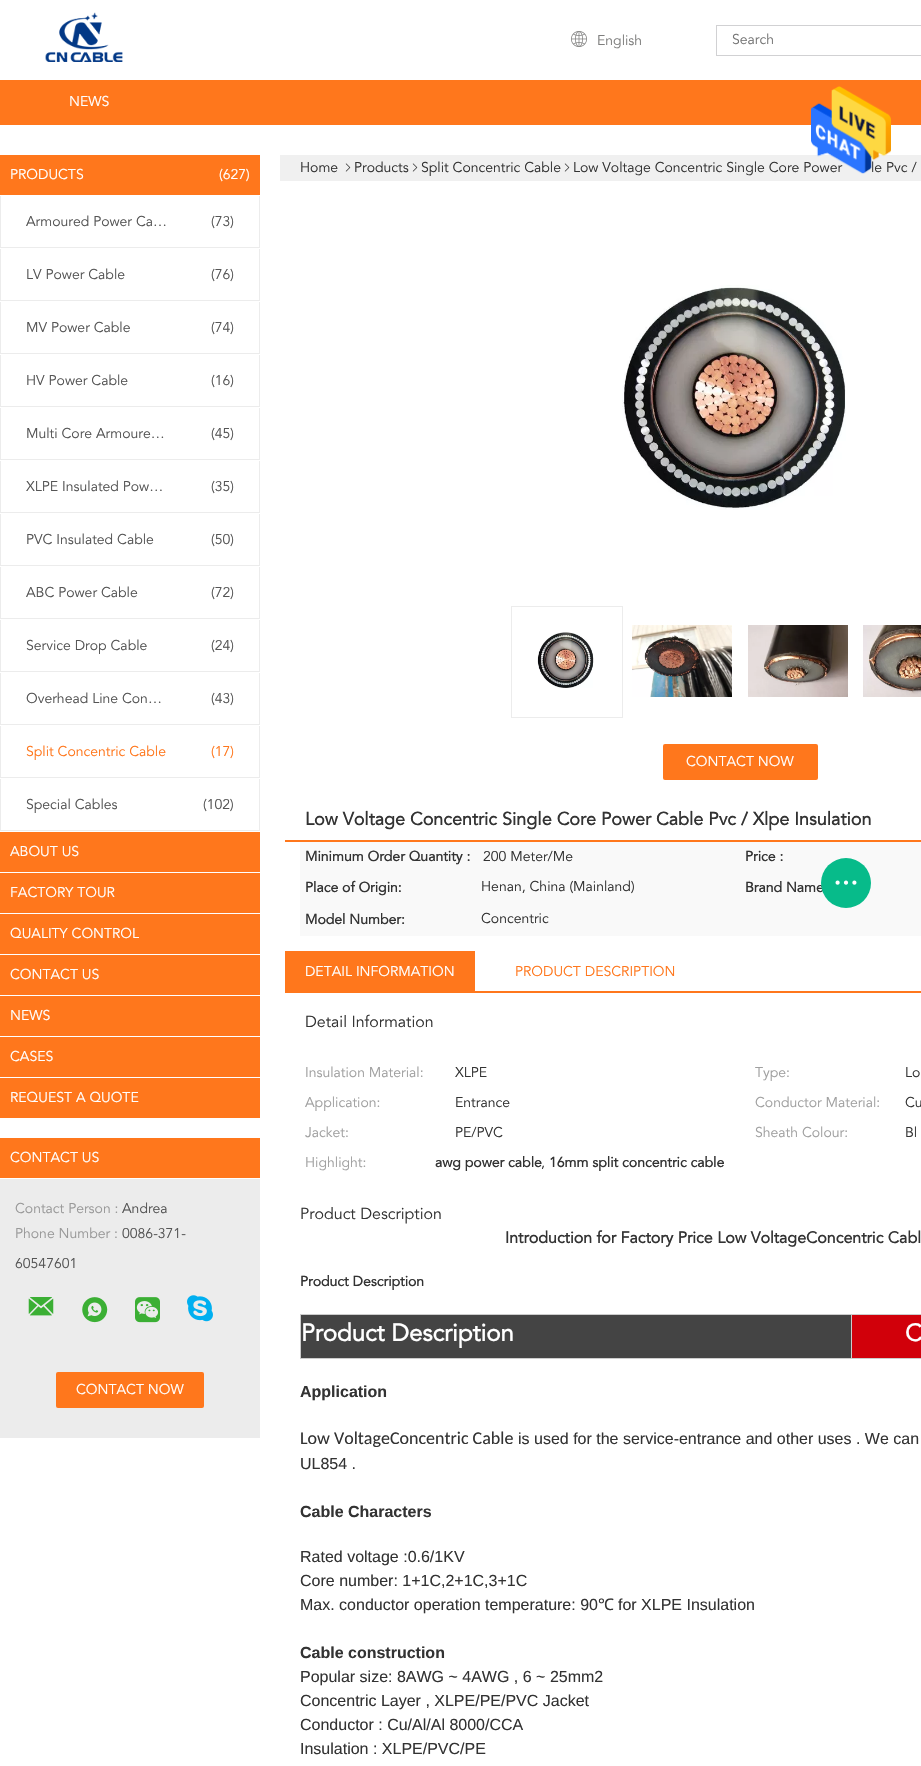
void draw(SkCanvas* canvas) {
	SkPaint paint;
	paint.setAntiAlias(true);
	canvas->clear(0xffffffff);
	canvas->drawImageRect(SkImages::DeferredFromEncodedData(SkData::MakeFromFileName("img1.png")), SkRect::MakeXYWH(45, 12, 78, 50), SkSamplingOptions());
	canvas->drawImageRect(SkImages::DeferredFromEncodedData(SkData::MakeFromFileName("img2.png")), SkRect::MakeXYWH(571, 31, 16, 16), SkSamplingOptions());
	SkFont f1(fontMgr->matchFamilyStyle("Avenir", SkFontStyle::Normal()), 14);
	f1.setSubpixel(true);
	paint.setColor(0xff7e7e7d);
	canvas->drawString("English", 597, 45, f1, paint);
	paint.setStroke(true);
	paint.setStrokeWidth(1);
	paint.setColor(0xffd1d1d3);
	canvas->drawRect(SkRect::MakeXYWH(716.5, 25.5, 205, 30), paint);
	paint.setStroke(false);
	paint.setColor(0xff757575);
	canvas->drawString("Search", 732, 44, f1, paint);
	paint.setColor(0xffff771c);
	canvas->drawRect(SkRect::MakeXYWH(0, 80, 921, 45), paint);
	paint.setColor(0xffffffff);
	canvas->drawString("NEWS", 69, 106, f1, paint);
	paint.setColor(0xfff0f0f0);
	canvas->drawRect(SkRect::MakeXYWH(280, 155, 641, 26), paint);
	paint.setColor(0xff333333);
	canvas->drawString("Low Voltage Concentric Single Core Power", 573, 172, f1, paint);
	canvas->drawString("le Pvc /", 871, 172, f1, paint);
	canvas->drawImageRect(SkImages::DeferredFromEncodedData(SkData::MakeFromFileName("img3.png")), SkRect::MakeXYWH(811, 86, 80, 88), SkSamplingOptions());
	paint.setColor(0xffff771c);
	canvas->drawRect(SkRect::MakeXYWH(0, 155, 260, 40), paint);
	paint.setColor(0xffffffff);
	canvas->drawString("PRODUCTS", 10, 179, f1, paint);
	canvas->drawString("(627)", 219, 179, f1, paint);
	paint.setColor(0xffececec);
	canvas->drawRect(SkRect::MakeXYWH(259, 196, 1, 52), paint);
	canvas->drawRect(SkRect::MakeXYWH(0, 247, 260, 1), paint);
	canvas->drawRect(SkRect::MakeXYWH(0, 196, 1, 52), paint);
	paint.setColor(0xff555555);
	canvas->drawString("Armoured Power Ca…", 26, 226, f1, paint);
	canvas->drawString("(73)", 211, 226, f1, paint);
	paint.setColor(0xffececec);
	canvas->drawRect(SkRect::MakeXYWH(259, 249, 1, 52), paint);
	canvas->drawRect(SkRect::MakeXYWH(0, 300, 260, 1), paint);
	canvas->drawRect(SkRect::MakeXYWH(0, 249, 1, 52), paint);
	paint.setColor(0xff555555);
	canvas->drawString("LV Power Cable", 26, 279, f1, paint);
	canvas->drawString("(76)", 211, 279, f1, paint);
	paint.setColor(0xffececec);
	canvas->drawRect(SkRect::MakeXYWH(259, 302, 1, 52), paint);
	canvas->drawRect(SkRect::MakeXYWH(0, 353, 260, 1), paint);
	canvas->drawRect(SkRect::MakeXYWH(0, 302, 1, 52), paint);
	paint.setColor(0xff555555);
	canvas->drawString("MV Power Cable", 26, 332, f1, paint);
	canvas->drawString("(74)", 211, 332, f1, paint);
	paint.setColor(0xffececec);
	canvas->drawRect(SkRect::MakeXYWH(259, 355, 1, 52), paint);
	canvas->drawRect(SkRect::MakeXYWH(0, 406, 260, 1), paint);
	canvas->drawRect(SkRect::MakeXYWH(0, 355, 1, 52), paint);
	paint.setColor(0xff555555);
	canvas->drawString("HV Power Cable", 26, 385, f1, paint);
	canvas->drawString("(16)", 211, 385, f1, paint);
	paint.setColor(0xffececec);
	canvas->drawRect(SkRect::MakeXYWH(259, 408, 1, 52), paint);
	canvas->drawRect(SkRect::MakeXYWH(0, 459, 260, 1), paint);
	canvas->drawRect(SkRect::MakeXYWH(0, 408, 1, 52), paint);
	paint.setColor(0xff555555);
	canvas->drawString("Multi Core Armoure…", 26, 438, f1, paint);
	canvas->drawString("(45)", 211, 438, f1, paint);
	paint.setColor(0xffececec);
	canvas->drawRect(SkRect::MakeXYWH(259, 461, 1, 52), paint);
	canvas->drawRect(SkRect::MakeXYWH(0, 512, 260, 1), paint);
	canvas->drawRect(SkRect::MakeXYWH(0, 461, 1, 52), paint);
	paint.setColor(0xff555555);
	canvas->drawString("XLPE Insulated Pow…", 26, 491, f1, paint);
	canvas->drawString("(35)", 211, 491, f1, paint);
	paint.setColor(0xffececec);
	canvas->drawRect(SkRect::MakeXYWH(259, 514, 1, 52), paint);
	canvas->drawRect(SkRect::MakeXYWH(0, 565, 260, 1), paint);
	canvas->drawRect(SkRect::MakeXYWH(0, 514, 1, 52), paint);
	paint.setColor(0xff555555);
	canvas->drawString("PVC Insulated Cable", 26, 544, f1, paint);
	canvas->drawString("(50)", 211, 544, f1, paint);
	paint.setColor(0xffececec);
	canvas->drawRect(SkRect::MakeXYWH(259, 567, 1, 52), paint);
	canvas->drawRect(SkRect::MakeXYWH(0, 618, 260, 1), paint);
	canvas->drawRect(SkRect::MakeXYWH(0, 567, 1, 52), paint);
	paint.setColor(0xff555555);
	canvas->drawString("ABC Power Cable", 26, 597, f1, paint);
	canvas->drawString("(72)", 211, 597, f1, paint);
	paint.setColor(0xffececec);
	canvas->drawRect(SkRect::MakeXYWH(259, 620, 1, 52), paint);
	canvas->drawRect(SkRect::MakeXYWH(0, 671, 260, 1), paint);
	canvas->drawRect(SkRect::MakeXYWH(0, 620, 1, 52), paint);
	paint.setColor(0xff555555);
	canvas->drawString("Service Drop Cable", 26, 650, f1, paint);
	canvas->drawString("(24)", 211, 650, f1, paint);
	paint.setColor(0xffececec);
	canvas->drawRect(SkRect::MakeXYWH(259, 673, 1, 52), paint);
	canvas->drawRect(SkRect::MakeXYWH(0, 724, 260, 1), paint);
	canvas->drawRect(SkRect::MakeXYWH(0, 673, 1, 52), paint);
	paint.setColor(0xff555555);
	canvas->drawString("Overhead Line Con…", 26, 703, f1, paint);
	canvas->drawString("(43)", 211, 703, f1, paint);
	paint.setColor(0xffececec);
	canvas->drawRect(SkRect::MakeXYWH(259, 726, 1, 52), paint);
	canvas->drawRect(SkRect::MakeXYWH(0, 777, 260, 1), paint);
	canvas->drawRect(SkRect::MakeXYWH(0, 726, 1, 52), paint);
	paint.setColor(0xffff771c);
	canvas->drawString("Split Concentric Cable", 26, 756, f1, paint);
	canvas->drawString("(17)", 211, 756, f1, paint);
	paint.setColor(0xffececec);
	canvas->drawRect(SkRect::MakeXYWH(259, 779, 1, 52), paint);
	canvas->drawRect(SkRect::MakeXYWH(0, 830, 260, 1), paint);
	canvas->drawRect(SkRect::MakeXYWH(0, 779, 1, 52), paint);
	paint.setColor(0xff555555);
	canvas->drawString("Special Cables", 26, 809, f1, paint);
	canvas->drawString("(102)", 203, 809, f1, paint);
	paint.setColor(0xffff771c);
	canvas->drawRect(SkRect::MakeXYWH(0, 832, 260, 40), paint);
	paint.setColor(0xffffffff);
	canvas->drawString("ABOUT US", 10, 856, f1, paint);
	paint.setColor(0xffff771c);
	canvas->drawRect(SkRect::MakeXYWH(0, 873, 260, 40), paint);
	paint.setColor(0xffffffff);
	canvas->drawString("FACTORY TOUR", 10, 897, f1, paint);
	paint.setColor(0xffff771c);
	canvas->drawRect(SkRect::MakeXYWH(0, 914, 260, 40), paint);
	paint.setColor(0xffffffff);
	canvas->drawString("QUALITY CONTROL", 10, 938, f1, paint);
	paint.setColor(0xffff771c);
	canvas->drawRect(SkRect::MakeXYWH(0, 955, 260, 40), paint);
	paint.setColor(0xffffffff);
	canvas->drawString("CONTACT US", 10, 979, f1, paint);
	paint.setColor(0xffff771c);
	canvas->drawRect(SkRect::MakeXYWH(0, 996, 260, 40), paint);
	paint.setColor(0xffffffff);
	canvas->drawString("NEWS", 10, 1020, f1, paint);
	paint.setColor(0xffff771c);
	canvas->drawRect(SkRect::MakeXYWH(0, 1037, 260, 40), paint);
	paint.setColor(0xffffffff);
	canvas->drawString("CASES", 10, 1061, f1, paint);
	paint.setColor(0xffff771c);
	canvas->drawRect(SkRect::MakeXYWH(0, 1078, 260, 40), paint);
	paint.setColor(0xffffffff);
	canvas->drawString("REQUEST A QUOTE", 10, 1102, f1, paint);
	paint.setColor(0xffececec);
	canvas->drawRect(SkRect::MakeXYWH(0, 1179, 260, 259), paint);
	paint.setColor(0xffff771c);
	canvas->drawRect(SkRect::MakeXYWH(0, 1138, 260, 40), paint);
	paint.setColor(0xffffffff);
	canvas->drawString("CONTACT US", 10, 1162, f1, paint);
	paint.setColor(0xff999999);
	canvas->drawString("Contact Person :", 15, 1213, f1, paint);
	paint.setColor(0xff555555);
	canvas->drawString("Andrea", 122, 1213, f1, paint);
	paint.setColor(0xff999999);
	canvas->drawString("Phone Number :", 15, 1238, f1, paint);
	paint.setColor(0xff555555);
	canvas->drawString("0086-371-", 122, 1238, f1, paint);
	canvas->drawString("60547601", 15, 1268, f1, paint);
	canvas->drawImageRect(SkImages::DeferredFromEncodedData(SkData::MakeFromFileName("img4.png")), SkRect::MakeXYWH(28, 1297, 26, 19), SkSamplingOptions());
	canvas->drawImageRect(SkImages::DeferredFromEncodedData(SkData::MakeFromFileName("img5.png")), SkRect::MakeXYWH(82, 1297, 26, 26), SkSamplingOptions());
	canvas->drawImageRect(SkImages::DeferredFromEncodedData(SkData::MakeFromFileName("img6.png")), SkRect::MakeXYWH(135, 1297, 25, 26), SkSamplingOptions());
	canvas->drawImageRect(SkImages::DeferredFromEncodedData(SkData::MakeFromFileName("img7.png")), SkRect::MakeXYWH(187, 1295, 26, 27), SkSamplingOptions());
	paint.setColor(0xffff771c);
	canvas->drawRoundRect(SkRect::MakeXYWH(56, 1372, 148, 36), 2, 2, paint);
	paint.setColor(0xffffffff);
	canvas->drawString("CONTACT NOW", 76, 1394, f1, paint);
	paint.setColor(0xff333333);
	canvas->drawString("Home", 300, 172, f1, paint);
	canvas->drawImageRect(SkImages::DeferredFromEncodedData(SkData::MakeFromFileName("img8.png")), SkRect::MakeXYWH(345, 163, 6, 9), SkSamplingOptions());
	canvas->drawString("Products", 354, 172, f1, paint);
	canvas->drawImageRect(SkImages::DeferredFromEncodedData(SkData::MakeFromFileName("img8.png")), SkRect::MakeXYWH(412, 163, 6, 9), SkSamplingOptions());
	canvas->drawString("Split Concentric Cable", 421, 172, f1, paint);
	canvas->drawImageRect(SkImages::DeferredFromEncodedData(SkData::MakeFromFileName("img8.png")), SkRect::MakeXYWH(564, 163, 6, 9), SkSamplingOptions());
	canvas->drawImageRect(SkImages::DeferredFromEncodedData(SkData::MakeFromFileName("img9.png")), SkRect::MakeXYWH(622, 285, 224, 225), SkSamplingOptions());
	paint.setStroke(true);
	paint.setColor(0xffececec);
	canvas->drawRect(SkRect::MakeXYWH(511.5, 606.5, 111, 111), paint);
	canvas->drawImageRect(SkImages::DeferredFromEncodedData(SkData::MakeFromFileName("img10.png")), SkRect::MakeXYWH(537, 632, 57, 56), SkSamplingOptions());
	canvas->drawImageRect(SkImages::DeferredFromEncodedData(SkData::MakeFromFileName("img11.png")), SkRect::MakeXYWH(632, 625, 100, 72), SkSamplingOptions());
	canvas->drawImageRect(SkImages::DeferredFromEncodedData(SkData::MakeFromFileName("img12.png")), SkRect::MakeXYWH(748, 625, 100, 72), SkSamplingOptions());
	canvas->drawImageRect(SkImages::DeferredFromEncodedData(SkData::MakeFromFileName("img13.png")), SkRect::MakeXYWH(863, 625, 58, 72), SkSamplingOptions());
	paint.setStroke(false);
	paint.setColor(0xffff771c);
	canvas->drawRoundRect(SkRect::MakeXYWH(663, 744, 155, 36), 2, 2, paint);
	paint.setColor(0xffffffff);
	canvas->drawString("CONTACT NOW", 686, 766, f1, paint);
	paint.setColor(0xffff771c);
	canvas->drawRect(SkRect::MakeXYWH(285, 840, 636, 2), paint);
	SkFont f2(fontMgr->matchFamilyStyle("Avenir", SkFontStyle::Bold()), 18);
	f2.setSubpixel(true);
	paint.setColor(0xff333333);
	canvas->drawString("Low Voltage Concentric Single Core Power Cable Pvc / Xlpe Insulation", 305, 825, f2, paint);
	paint.setColor(0xfff9f9f9);
	canvas->drawRect(SkRect::MakeXYWH(300, 842, 621, 94), paint);
	SkFont f3(fontMgr->matchFamilyStyle("Avenir", SkFontStyle::Bold()), 14);
	f3.setSubpixel(true);
	paint.setColor(0xff333333);
	canvas->drawString("Minimum Order Quantity :", 305, 861, f3, paint);
	canvas->drawString("200 Meter/Me", 483, 861, f1, paint);
	canvas->drawString("Price :", 745, 861, f3, paint);
	canvas->drawString("Place of Origin:", 305, 892, f3, paint);
	canvas->drawString("Henan, China (Mainland)", 481, 891, f1, paint);
	canvas->drawString("Brand Name", 745, 892, f3, paint);
	canvas->drawString("Model Number:", 305, 924, f3, paint);
	canvas->drawString("Concentric", 481, 923, f1, paint);
	paint.setColor(0xffff771c);
	canvas->drawRect(SkRect::MakeXYWH(285, 991, 636, 2), paint);
	canvas->drawRect(SkRect::MakeXYWH(285, 951, 190, 40), paint);
	paint.setColor(0xffffffff);
	canvas->drawString("DETAIL INFORMATION", 305, 976, f1, paint);
	paint.setColor(0xffff771c);
	canvas->drawString("PRODUCT DESCRIPTION", 515, 976, f1, paint);
	SkFont f4(fontMgr->matchFamilyStyle("Avenir", SkFontStyle::Normal()), 16);
	f4.setSubpixel(true);
	paint.setColor(0xff333333);
	canvas->drawString("Detail Information", 305, 1027, f4, paint);
	paint.setColor(0xffa0a0a0);
	canvas->drawString("Insulation Material:", 305, 1077, f1, paint);
	paint.setColor(0xff333333);
	canvas->drawString("XLPE", 455, 1077, f1, paint);
	paint.setColor(0xffa0a0a0);
	canvas->drawString("Type:", 755, 1077, f1, paint);
	paint.setColor(0xff333333);
	canvas->drawString("Lo", 905, 1077, f1, paint);
	paint.setColor(0xffa0a0a0);
	canvas->drawString("Application:", 305, 1107, f1, paint);
	paint.setColor(0xff333333);
	canvas->drawString("Entrance", 455, 1107, f1, paint);
	paint.setColor(0xffa0a0a0);
	canvas->drawString("Conductor Material:", 755, 1107, f1, paint);
	paint.setColor(0xff333333);
	canvas->drawString("Cu", 905, 1107, f1, paint);
	paint.setColor(0xffa0a0a0);
	canvas->drawString("Jacket:", 305, 1137, f1, paint);
	paint.setColor(0xff333333);
	canvas->drawString("PE/PVC", 455, 1137, f1, paint);
	paint.setColor(0xffa0a0a0);
	canvas->drawString("Sheath Colour:", 755, 1137, f1, paint);
	paint.setColor(0xff333333);
	canvas->drawString("Bl", 905, 1137, f1, paint);
	paint.setColor(0xffa0a0a0);
	canvas->drawString("Highlight:", 305, 1167, f1, paint);
	paint.setColor(0xff333333);
	canvas->drawString("awg power cable", 435, 1167, f3, paint);
	canvas->drawString(",", 541, 1167, f1, paint);
	canvas->drawString("16mm split concentric cable", 549, 1167, f3, paint);
	canvas->drawString("Product Description", 300, 1219, f4, paint);
	SkFont f5(fontMgr->matchFamilyStyle("Avenir", SkFontStyle::Bold()), 16);
	f5.setSubpixel(true);
	canvas->drawString("Introduction for Factory Price Low VoltageConcentric Cabl", 505, 1243, f5, paint);
	canvas->drawString("Product Description", 300, 1286, f3, paint);
	paint.setColor(0xffcccccc);
	canvas->drawRect(SkRect::MakeXYWH(300, 1314, 621, 1), paint);
	canvas->drawRect(SkRect::MakeXYWH(300, 1358, 621, 1), paint);
	canvas->drawRect(SkRect::MakeXYWH(300, 1314, 1, 45), paint);
	paint.setColor(0xff444444);
	canvas->drawRect(SkRect::MakeXYWH(301, 1315, 550, 43), paint);
	SkFont f6(fontMgr->matchFamilyStyle("Avenir", SkFontStyle::Bold()), 24);
	f6.setSubpixel(true);
	paint.setColor(0xffffffff);
	canvas->drawString("Product Description", 301, 1341, f6, paint);
	paint.setColor(0xffd1000a);
	canvas->drawRect(SkRect::MakeXYWH(852, 1315, 69, 43), paint);
	paint.setColor(0xffcccccc);
	canvas->drawRect(SkRect::MakeXYWH(851, 1314, 1, 45), paint);
	paint.setColor(0xffffffff);
	canvas->drawString("C", 905, 1341, f6, paint);
	SkFont f7(fontMgr->matchFamilyStyle("Liberation Sans", SkFontStyle::Bold()), 16);
	f7.setSubpixel(true);
	paint.setColor(0xff333333);
	canvas->drawString("Application", 300, 1397, f7, paint);
	SkFont f8(fontMgr->matchFamilyStyle("Carlito", SkFontStyle::Normal()), 18);
	f8.setSubpixel(true);
	canvas->drawString("Low VoltageConcentric Cable", 300, 1444, f8, paint);
	SkFont f9(fontMgr->matchFamilyStyle("Liberation Sans", SkFontStyle::Normal()), 16);
	f9.setSubpixel(true);
	canvas->drawString("is used for the service-entrance and other uses . We can", 518, 1444, f9, paint);
	canvas->drawString("UL854 .", 300, 1469, f9, paint);
	canvas->drawString("Cable Characters", 300, 1517, f7, paint);
	canvas->drawString("Rated voltage :0.6/1KV", 300, 1562, f9, paint);
	canvas->drawString("Core number: 1+1C,2+1C,3+1C", 300, 1586, f9, paint);
	canvas->drawString("Max. conductor operation temperature: 90", 300, 1610, f9, paint);
	SkFont f10(fontMgr->matchFamilyStyle("Noto Sans", SkFontStyle::Normal()), 16);
	f10.setSubpixel(true);
	canvas->drawString("℃", 598, 1610, f10, paint);
	canvas->drawString("for XLPE Insulation", 618, 1610, f9, paint);
	canvas->drawString("Cable construction", 300, 1658, f7, paint);
	canvas->drawString("Popular size: 8AWG ~ 4AWG , 6 ~ 25mm2", 300, 1682, f9, paint);
	canvas->drawString("Concentric Layer , XLPE/PE/PVC Jacket", 300, 1706, f9, paint);
	canvas->drawString("Conductor : Cu/Al/Al 8000/CCA", 300, 1730, f9, paint);
	canvas->drawString("Insulation : XLPE/PVC/PE", 300, 1754, f9, paint);
	paint.setColor(0xff07bb8a);
	canvas->drawCircle(846, 883, 25, paint);
	canvas->drawImageRect(SkImages::DeferredFromEncodedData(SkData::MakeFromFileName("img14.png")), SkRect::MakeXYWH(835, 880, 22, 5), SkSamplingOptions());
}
